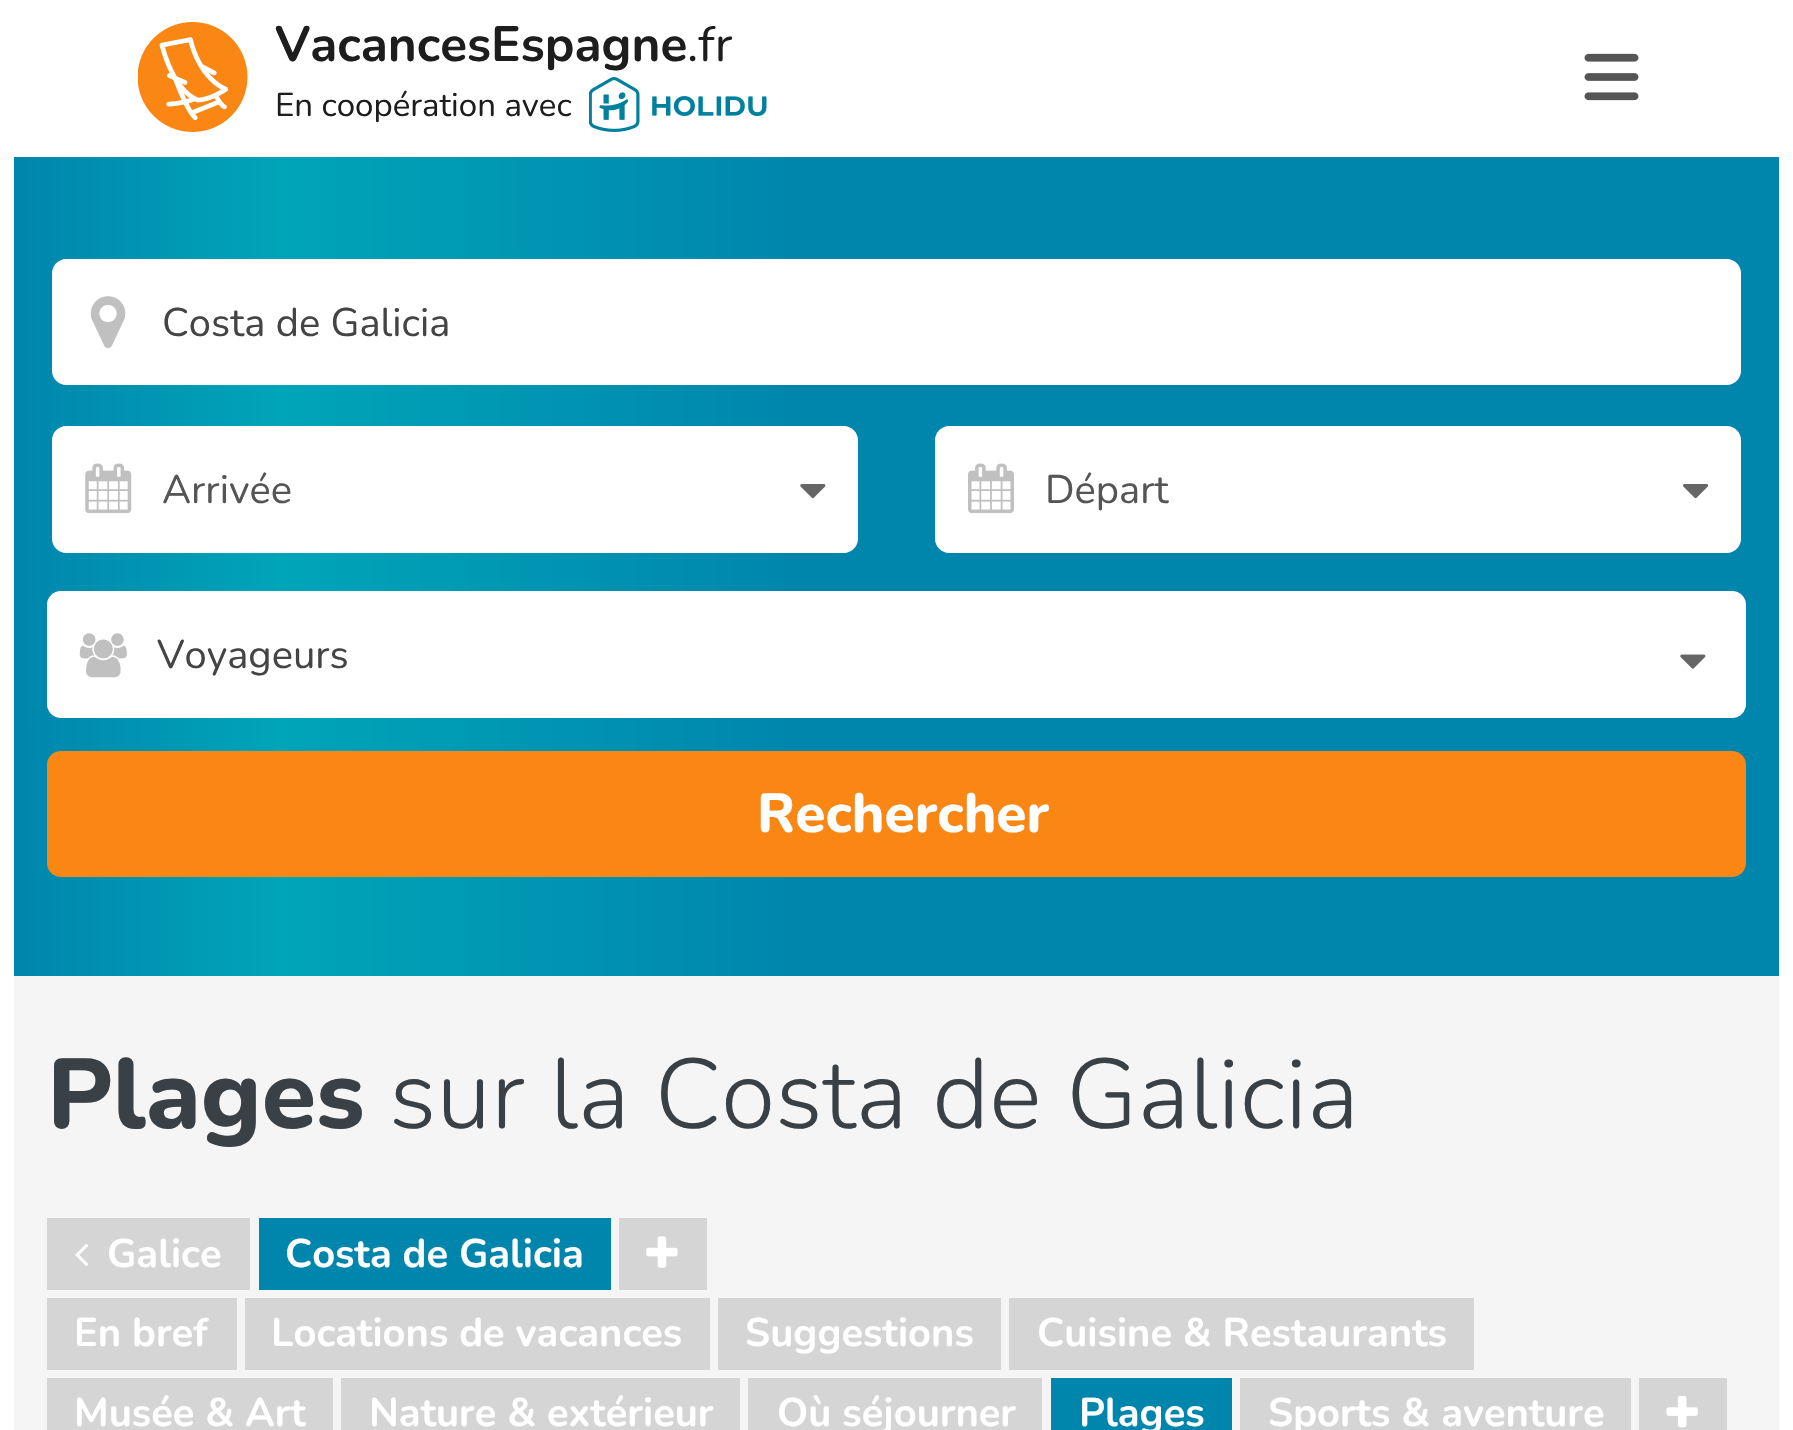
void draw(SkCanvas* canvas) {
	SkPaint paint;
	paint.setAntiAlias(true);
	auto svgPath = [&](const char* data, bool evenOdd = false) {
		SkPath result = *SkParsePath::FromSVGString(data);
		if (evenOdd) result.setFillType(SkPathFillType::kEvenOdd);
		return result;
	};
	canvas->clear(0xffffffff);
	canvas->drawImageRect(SkImages::DeferredFromEncodedData(SkData::MakeFromFileName("img1.png")), SkRect::MakeXYWH(138, 22, 110, 110), SkSamplingOptions());
	SkFont f1(fontMgr->matchFamilyStyle("Nunito", SkFontStyle::Bold()), 49.5);
	f1.setSubpixel(true);
	paint.setColor(0xff1d1d1d);
	canvas->drawString("VacancesEspagne", 275, 61, f1, paint);
	SkFont f2(fontMgr->matchFamilyStyle("Nunito", SkFontStyle::Normal()), 49.5);
	f2.setSubpixel(true);
	canvas->drawString(".fr", 687, 61, f2, paint);
	SkFont f3(fontMgr->matchFamilyStyle("Nunito", SkFontStyle::Normal()), 33);
	f3.setSubpixel(true);
	canvas->drawString("En coopération avec", 275, 116, f3, paint);
	canvas->drawImageRect(SkImages::DeferredFromEncodedData(SkData::MakeFromFileName("img2.png")), SkRect::MakeXYWH(589, 77, 178, 55), SkSamplingOptions());
	canvas->drawImageRect(SkImages::DeferredFromEncodedData(SkData::MakeFromFileName("img3.png")), SkRect::MakeXYWH(1584, 53, 55, 48), SkSamplingOptions());
	{
		const SkColor colors[] = {0xff0085ad, 0xff00a5b8, 0xff0085ad};
		const float stops[] = {0, 0.15, 0.45};
		const SkPoint ends[] = {{14, 567}, {1779, 566}};
		paint.setShader(SkGradientShader::MakeLinear(ends, colors, stops, 3, SkTileMode::kClamp));
		paint.setAlpha(255);
	}
	canvas->drawRect(SkRect::MakeXYWH(14, 157, 1765, 819), paint);
	paint.setShader(nullptr);
	paint.setColor(0xffffffff);
	canvas->drawPath(svgPath("M66 259H162V385H66C58.5 385 52 378.5 52 371V273C52 265.5 58.5 259 66 259Z"), paint);
	canvas->drawImageRect(SkImages::DeferredFromEncodedData(SkData::MakeFromFileName("img4.png")), SkRect::MakeXYWH(90, 296, 36, 52), SkSamplingOptions());
	canvas->drawPath(svgPath("M162 259H1727C1734.5 259 1741 265.5 1741 273V371C1741 378.5 1734.5 385 1727 385H162Z"), paint);
	SkFont f4(fontMgr->matchFamilyStyle("Nunito", SkFontStyle::Normal()), 39.9);
	f4.setSubpixel(true);
	paint.setColor(0xff444444);
	canvas->drawString("Costa de Galicia", 162, 336, f4, paint);
	paint.setColor(0xffffffff);
	canvas->drawPath(svgPath("M66 426H162V553H66C58.5 553 52 546.5 52 539V440C52 432.5 58.5 426 66 426Z"), paint);
	canvas->drawImageRect(SkImages::DeferredFromEncodedData(SkData::MakeFromFileName("img5.png")), SkRect::MakeXYWH(85, 463, 47, 51), SkSamplingOptions());
	canvas->drawRect(SkRect::MakeXYWH(162, 426, 633, 127), paint);
	paint.setColor(0xff555555);
	canvas->drawString("Arrivée", 162, 503, f4, paint);
	paint.setColor(0xffffffff);
	canvas->drawPath(svgPath("M795 426H844C851.5 426 858 432.5 858 440V539C858 546.5 851.5 553 844 553H795Z"), paint);
	canvas->drawImageRect(SkImages::DeferredFromEncodedData(SkData::MakeFromFileName("img6.png")), SkRect::MakeXYWH(800, 484, 26, 15), SkSamplingOptions());
	canvas->drawPath(svgPath("M949 426H1045V553H949C941.5 553 935 546.5 935 539V440C935 432.5 941.5 426 949 426Z"), paint);
	canvas->drawImageRect(SkImages::DeferredFromEncodedData(SkData::MakeFromFileName("img7.png")), SkRect::MakeXYWH(968, 463, 46, 51), SkSamplingOptions());
	canvas->drawRect(SkRect::MakeXYWH(1045, 426, 633, 127), paint);
	paint.setColor(0xff555555);
	canvas->drawString("Départ", 1045, 503, f4, paint);
	paint.setColor(0xffffffff);
	canvas->drawPath(svgPath("M1678 426H1727C1734.5 426 1741 432.5 1741 440V539C1741 546.5 1734.5 553 1727 553H1678Z"), paint);
	canvas->drawImageRect(SkImages::DeferredFromEncodedData(SkData::MakeFromFileName("img8.png")), SkRect::MakeXYWH(1683, 484, 26, 15), SkSamplingOptions());
	canvas->drawRoundRect(SkRect::MakeXYWH(47, 591, 1699, 127), 14, 14, paint);
	canvas->drawImageRect(SkImages::DeferredFromEncodedData(SkData::MakeFromFileName("img9.png")), SkRect::MakeXYWH(79, 633, 48, 45), SkSamplingOptions());
	paint.setColor(0xff444444);
	canvas->drawString("Voyageurs", 157, 668, f4, paint);
	canvas->drawImageRect(SkImages::DeferredFromEncodedData(SkData::MakeFromFileName("img10.png")), SkRect::MakeXYWH(1680, 654, 26, 15), SkSamplingOptions());
	paint.setColor(0xfffa8613);
	canvas->drawRoundRect(SkRect::MakeXYWH(47, 751, 1699, 126), 14, 14, paint);
	SkFont f5(fontMgr->matchFamilyStyle("Nunito", SkFontStyle(800, SkFontStyle::kNormal_Width, SkFontStyle::kUpright_Slant)), 55);
	f5.setSubpixel(true);
	paint.setColor(0xffffffff);
	canvas->drawString("Rechercher", 757, 832, f5, paint);
	paint.setColor(0xfff5f5f5);
	canvas->drawRect(SkRect::MakeXYWH(14, 976, 1765, 454), paint);
	SkFont f6(fontMgr->matchFamilyStyle("Nunito", SkFontStyle(800, SkFontStyle::kNormal_Width, SkFontStyle::kUpright_Slant)), 99);
	f6.setSubpixel(true);
	paint.setColor(0xff394147);
	canvas->drawString("Plages", 47, 1128, f6, paint);
	SkFont f7(fontMgr->matchFamilyStyle("Nunito", SkFontStyle(300, SkFontStyle::kNormal_Width, SkFontStyle::kUpright_Slant)), 99);
	f7.setSubpixel(true);
	canvas->drawString("sur la Costa de Galicia", 389, 1128, f7, paint);
	paint.setColor(0xffd5d5d5);
	canvas->drawRect(SkRect::MakeXYWH(47, 1218, 203, 72), paint);
	canvas->drawImageRect(SkImages::DeferredFromEncodedData(SkData::MakeFromFileName("img11.png")), SkRect::MakeXYWH(75, 1244, 13, 22), SkSamplingOptions());
	SkFont f8(fontMgr->matchFamilyStyle("Nunito", SkFontStyle::Bold()), 39.9);
	f8.setSubpixel(true);
	paint.setColor(0xffffffff);
	canvas->drawString("Galice", 107, 1267, f8, paint);
	paint.setColor(0xff0085ad);
	canvas->drawRect(SkRect::MakeXYWH(259, 1218, 352, 72), paint);
	paint.setColor(0xffffffff);
	canvas->drawString("Costa de Galicia", 285, 1267, f8, paint);
	paint.setColor(0xffd5d5d5);
	canvas->drawRect(SkRect::MakeXYWH(619, 1218, 88, 72), paint);
	canvas->drawImageRect(SkImages::DeferredFromEncodedData(SkData::MakeFromFileName("img12.png")), SkRect::MakeXYWH(646, 1236, 32, 32), SkSamplingOptions());
	canvas->drawRect(SkRect::MakeXYWH(47, 1298, 190, 72), paint);
	paint.setColor(0xffffffff);
	canvas->drawString("En bref", 74, 1346, f8, paint);
	paint.setColor(0xffd5d5d5);
	canvas->drawRect(SkRect::MakeXYWH(245, 1298, 465, 72), paint);
	paint.setColor(0xffffffff);
	canvas->drawString("Locations de vacances", 271, 1346, f8, paint);
	paint.setColor(0xffd5d5d5);
	canvas->drawRect(SkRect::MakeXYWH(718, 1298, 283, 72), paint);
	paint.setColor(0xffffffff);
	canvas->drawString("Suggestions", 745, 1346, f8, paint);
	paint.setColor(0xffd5d5d5);
	canvas->drawRect(SkRect::MakeXYWH(1009, 1298, 465, 72), paint);
	paint.setColor(0xffffffff);
	canvas->drawString("Cuisine & Restaurants", 1037, 1346, f8, paint);
	paint.setColor(0xffd5d5d5);
	canvas->drawRect(SkRect::MakeXYWH(47, 1378, 286, 52), paint);
	paint.setColor(0xffffffff);
	canvas->drawString("Musée & Art", 74, 1426, f8, paint);
	paint.setColor(0xffd5d5d5);
	canvas->drawRect(SkRect::MakeXYWH(341, 1378, 399, 52), paint);
	paint.setColor(0xffffffff);
	canvas->drawString("Nature & extérieur", 369, 1426, f8, paint);
	paint.setColor(0xffd5d5d5);
	canvas->drawRect(SkRect::MakeXYWH(748, 1378, 294, 52), paint);
	paint.setColor(0xffffffff);
	canvas->drawString("Où séjourner", 777, 1426, f8, paint);
	paint.setColor(0xff0085ad);
	canvas->drawRect(SkRect::MakeXYWH(1051, 1378, 181, 52), paint);
	paint.setColor(0xffffffff);
	canvas->drawString("Plages", 1079, 1426, f8, paint);
	paint.setColor(0xffd5d5d5);
	canvas->drawRect(SkRect::MakeXYWH(1240, 1378, 391, 52), paint);
	paint.setColor(0xffffffff);
	canvas->drawString("Sports & aventure", 1268, 1426, f8, paint);
	paint.setColor(0xffd5d5d5);
	canvas->drawRect(SkRect::MakeXYWH(1639, 1378, 88, 52), paint);
	canvas->drawImageRect(SkImages::DeferredFromEncodedData(SkData::MakeFromFileName("img13.png")), SkRect::MakeXYWH(1666, 1396, 32, 32), SkSamplingOptions());
}
